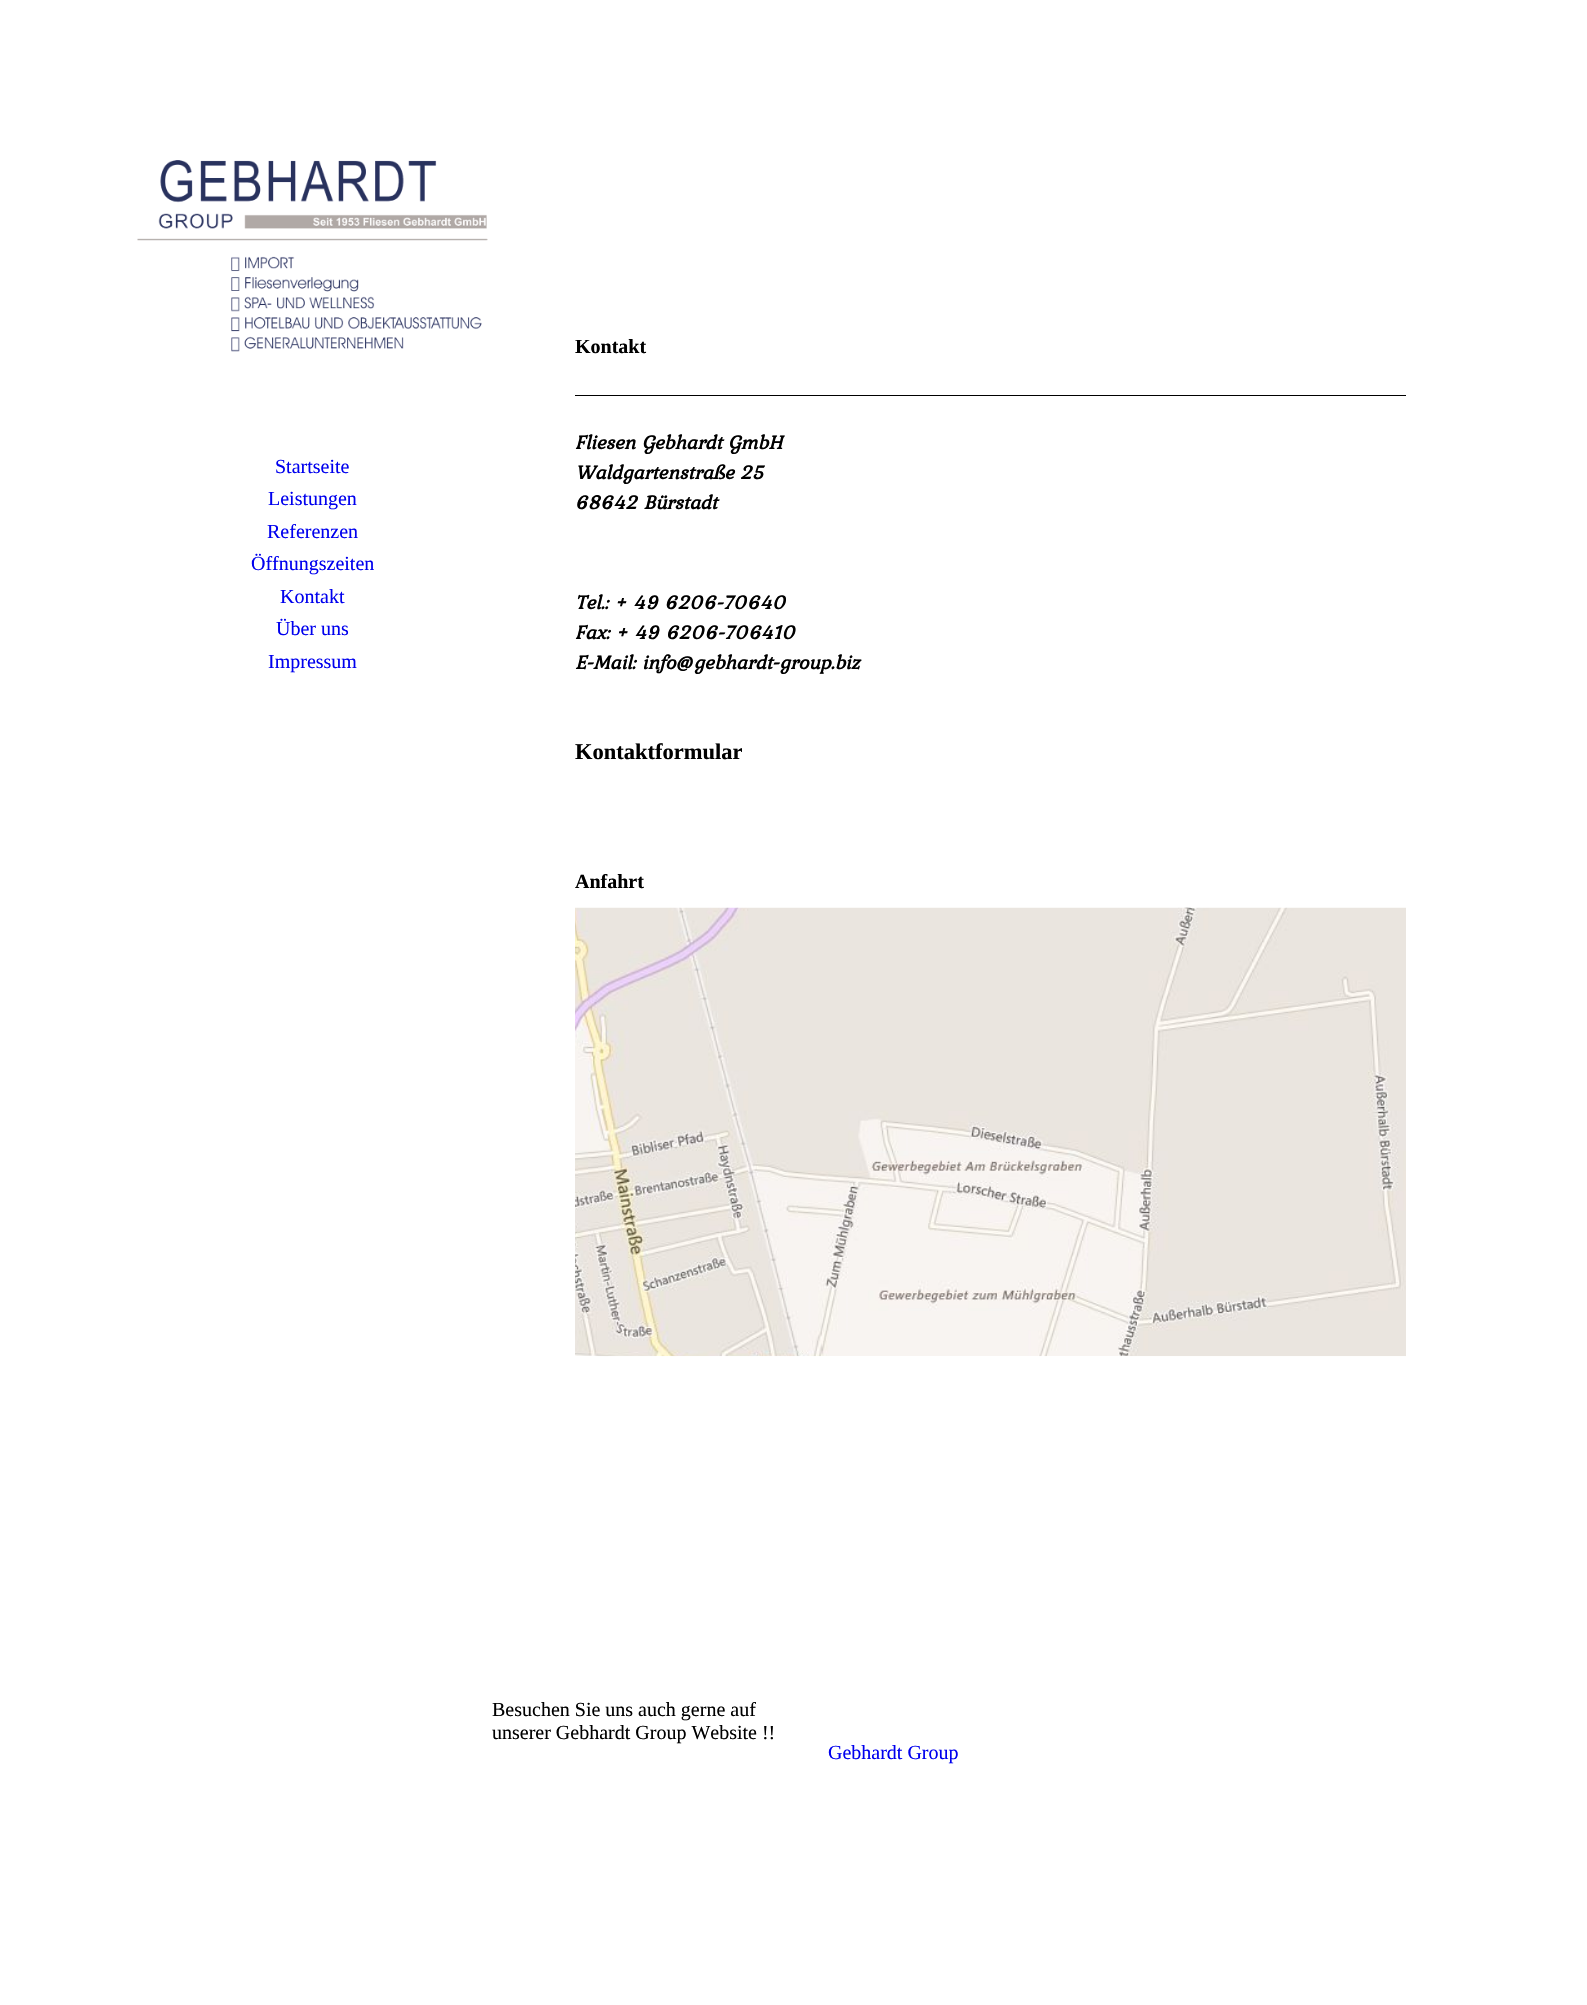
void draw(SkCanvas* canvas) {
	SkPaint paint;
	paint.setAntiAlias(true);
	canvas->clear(0xffffffff);
	canvas->drawImageRect(SkImages::DeferredFromEncodedData(SkData::MakeFromFileName("img1.png")), SkRect::MakeXYWH(137, 160, 351, 192), SkSamplingOptions());
	SkFont f1(fontMgr->matchFamilyStyle("Liberation Serif", SkFontStyle::Normal()), 20);
	f1.setSubpixel(true);
	paint.setColor(0xff0000ee);
	canvas->drawString("Startseite", 275, 473, f1, paint);
	canvas->drawString("Leistungen", 268, 505, f1, paint);
	canvas->drawString("Referenzen", 267, 538, f1, paint);
	canvas->drawString("Öffnungszeiten", 251, 570, f1, paint);
	canvas->drawString("Kontakt", 280, 603, f1, paint);
	canvas->drawString("Über uns", 276, 635, f1, paint);
	canvas->drawString("Impressum", 268, 668, f1, paint);
	SkFont f2(fontMgr->matchFamilyStyle("Liberation Serif", SkFontStyle::Bold()), 20);
	f2.setSubpixel(true);
	paint.setColor(0xff000000);
	canvas->drawString("Kontakt", 575, 353, f2, paint);
	canvas->drawRect(SkRect::MakeXYWH(575, 395, 831, 1), paint);
	SkFont f3(fontMgr->matchFamilyStyle("Kurale", SkFontStyle::BoldItalic()), 20);
	f3.setSubpixel(true);
	canvas->drawString("Fliesen Gebhardt GmbH", 575, 449, f3, paint);
	canvas->drawString("Waldgartenstraße 25", 575, 479, f3, paint);
	canvas->drawString("68642 Bürstadt", 575, 509, f3, paint);
	canvas->drawString("Tel.: + 49 6206-70640", 575, 609, f3, paint);
	canvas->drawString("Fax: + 49 6206-706410", 575, 639, f3, paint);
	canvas->drawString("E-Mail: info@gebhardt-group.biz", 575, 669, f3, paint);
	SkFont f4(fontMgr->matchFamilyStyle("Liberation Serif", SkFontStyle::Bold()), 22.5);
	f4.setSubpixel(true);
	canvas->drawString("Kontaktformular", 575, 759, f4, paint);
	canvas->drawString("Anfahrt", 575, 888, f2, paint);
	canvas->drawImageRect(SkImages::DeferredFromEncodedData(SkData::MakeFromFileName("img2.png")), SkRect::MakeXYWH(575, 907, 831, 450), SkSamplingOptions());
	canvas->drawString("Besuchen Sie uns auch gerne auf", 492, 1716, f1, paint);
	canvas->drawString("unserer Gebhardt Group Website !!", 492, 1739, f1, paint);
	paint.setColor(0xff0000ee);
	canvas->drawString("Gebhardt Group", 828, 1759, f1, paint);
}
